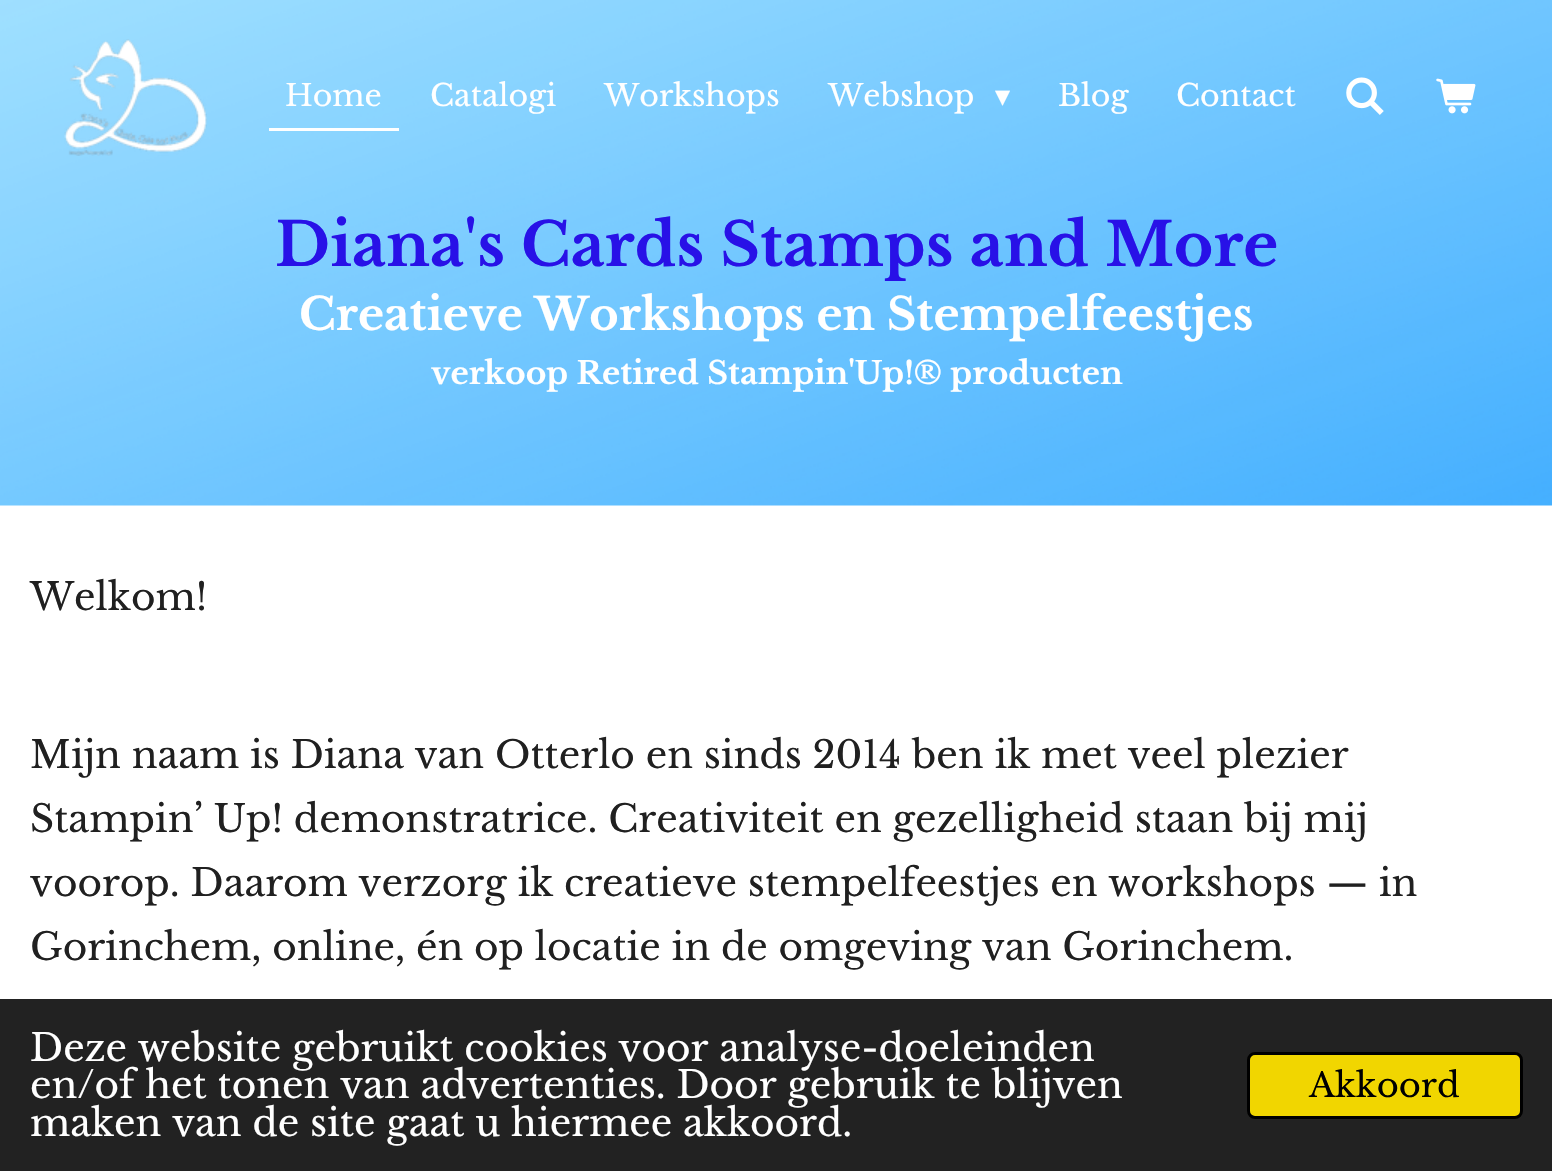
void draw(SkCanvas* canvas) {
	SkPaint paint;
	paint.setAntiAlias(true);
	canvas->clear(0xffffffff);
	canvas->drawImageRect(SkImages::DeferredFromEncodedData(SkData::MakeFromFileName("img4.png")), SkRect::MakeXYWH(0, 0, 1552, 506), SkSamplingOptions());
	canvas->drawImageRect(SkImages::DeferredFromEncodedData(SkData::MakeFromFileName("img1.png")), SkRect::MakeXYWH(64, 39, 143, 117), SkSamplingOptions());
	paint.setColor(0xffffffff);
	canvas->drawRect(SkRect::MakeXYWH(269, 128, 130, 3), paint);
	SkFont f1(fontMgr->matchFamilyStyle("Libre Baskerville", SkFontStyle::Normal()), 30);
	f1.setSubpixel(true);
	canvas->drawString("Home", 285, 106, f1, paint);
	canvas->drawString("Catalogi", 430, 106, f1, paint);
	canvas->drawString("Workshops", 604, 106, f1, paint);
	canvas->drawString("Webshop", 828, 106, f1, paint);
	SkFont f2(fontMgr->matchFamilyStyle("DejaVu Sans", SkFontStyle::Normal()), 30);
	f2.setSubpixel(true);
	canvas->drawString("▾", 995, 106, f2, paint);
	canvas->drawString("Blog", 1058, 106, f1, paint);
	canvas->drawString("Contact", 1176, 106, f1, paint);
	canvas->drawImageRect(SkImages::DeferredFromEncodedData(SkData::MakeFromFileName("img2.png")), SkRect::MakeXYWH(1346, 77, 38, 38), SkSamplingOptions());
	canvas->drawImageRect(SkImages::DeferredFromEncodedData(SkData::MakeFromFileName("img3.png")), SkRect::MakeXYWH(1436, 78, 40, 36), SkSamplingOptions());
	SkFont f3(fontMgr->matchFamilyStyle("Libre Baskerville", SkFontStyle::Bold()), 60);
	f3.setSubpixel(true);
	paint.setColor(0xff2811e7);
	canvas->drawString("Diana's Cards Stamps and More", 275, 266, f3, paint);
	SkFont f4(fontMgr->matchFamilyStyle("Libre Baskerville", SkFontStyle::Bold()), 44.6);
	f4.setSubpixel(true);
	paint.setColor(0xffffffff);
	canvas->drawString("Creatieve Workshops en Stempelfeestjes", 299, 330, f4, paint);
	SkFont f5(fontMgr->matchFamilyStyle("Libre Baskerville", SkFontStyle::Bold()), 31.25);
	f5.setSubpixel(true);
	canvas->drawString("verkoop Retired Stampin'Up!® producten", 431, 384, f5, paint);
	SkFont f6(fontMgr->matchFamilyStyle("Libre Baskerville", SkFontStyle::Normal()), 37.5);
	f6.setSubpixel(true);
	paint.setColor(0xff202020);
	canvas->drawString("Welkom!", 30, 610, f6, paint);
	canvas->drawString("Mijn naam is Diana van Otterlo en sinds 2014 ben ik met veel plezier", 30, 768, f6, paint);
	canvas->drawString("Stampin’ Up! demonstratrice. Creativiteit en gezelligheid staan bij mij", 30, 832, f6, paint);
	canvas->drawString("voorop. Daarom verzorg ik creatieve stempelfeestjes en workshops — in", 30, 896, f6, paint);
	canvas->drawString("Gorinchem, online, én op locatie in de omgeving van Gorinchem.", 30, 960, f6, paint);
	paint.setColor(0xff222222);
	canvas->drawRect(SkRect::MakeXYWH(0, 999, 1552, 172), paint);
	paint.setColor(0xffffffff);
	canvas->drawString("Deze website gebruikt cookies voor analyse-doeleinden", 30, 1061, f6, paint);
	canvas->drawString("en/of het tonen van advertenties. Door gebruik te blijven", 30, 1098, f6, paint);
	canvas->drawString("maken van de site gaat u hiermee akkoord.", 30, 1136, f6, paint);
	paint.setColor(0xfff1d600);
	canvas->drawRoundRect(SkRect::MakeXYWH(1248.5, 1053.5, 273, 64), 6.5, 6.5, paint);
	paint.setStroke(true);
	paint.setStrokeWidth(3);
	paint.setColor(0xff000000);
	canvas->drawRoundRect(SkRect::MakeXYWH(1248.5, 1053.5, 273, 64), 6.5, 6.5, paint);
	SkFont f7(fontMgr->matchFamilyStyle("Libre Baskerville", SkFontStyle::Normal()), 33.75);
	f7.setSubpixel(true);
	paint.setStroke(false);
	canvas->drawString("Akkoord", 1309, 1097, f7, paint);
}
